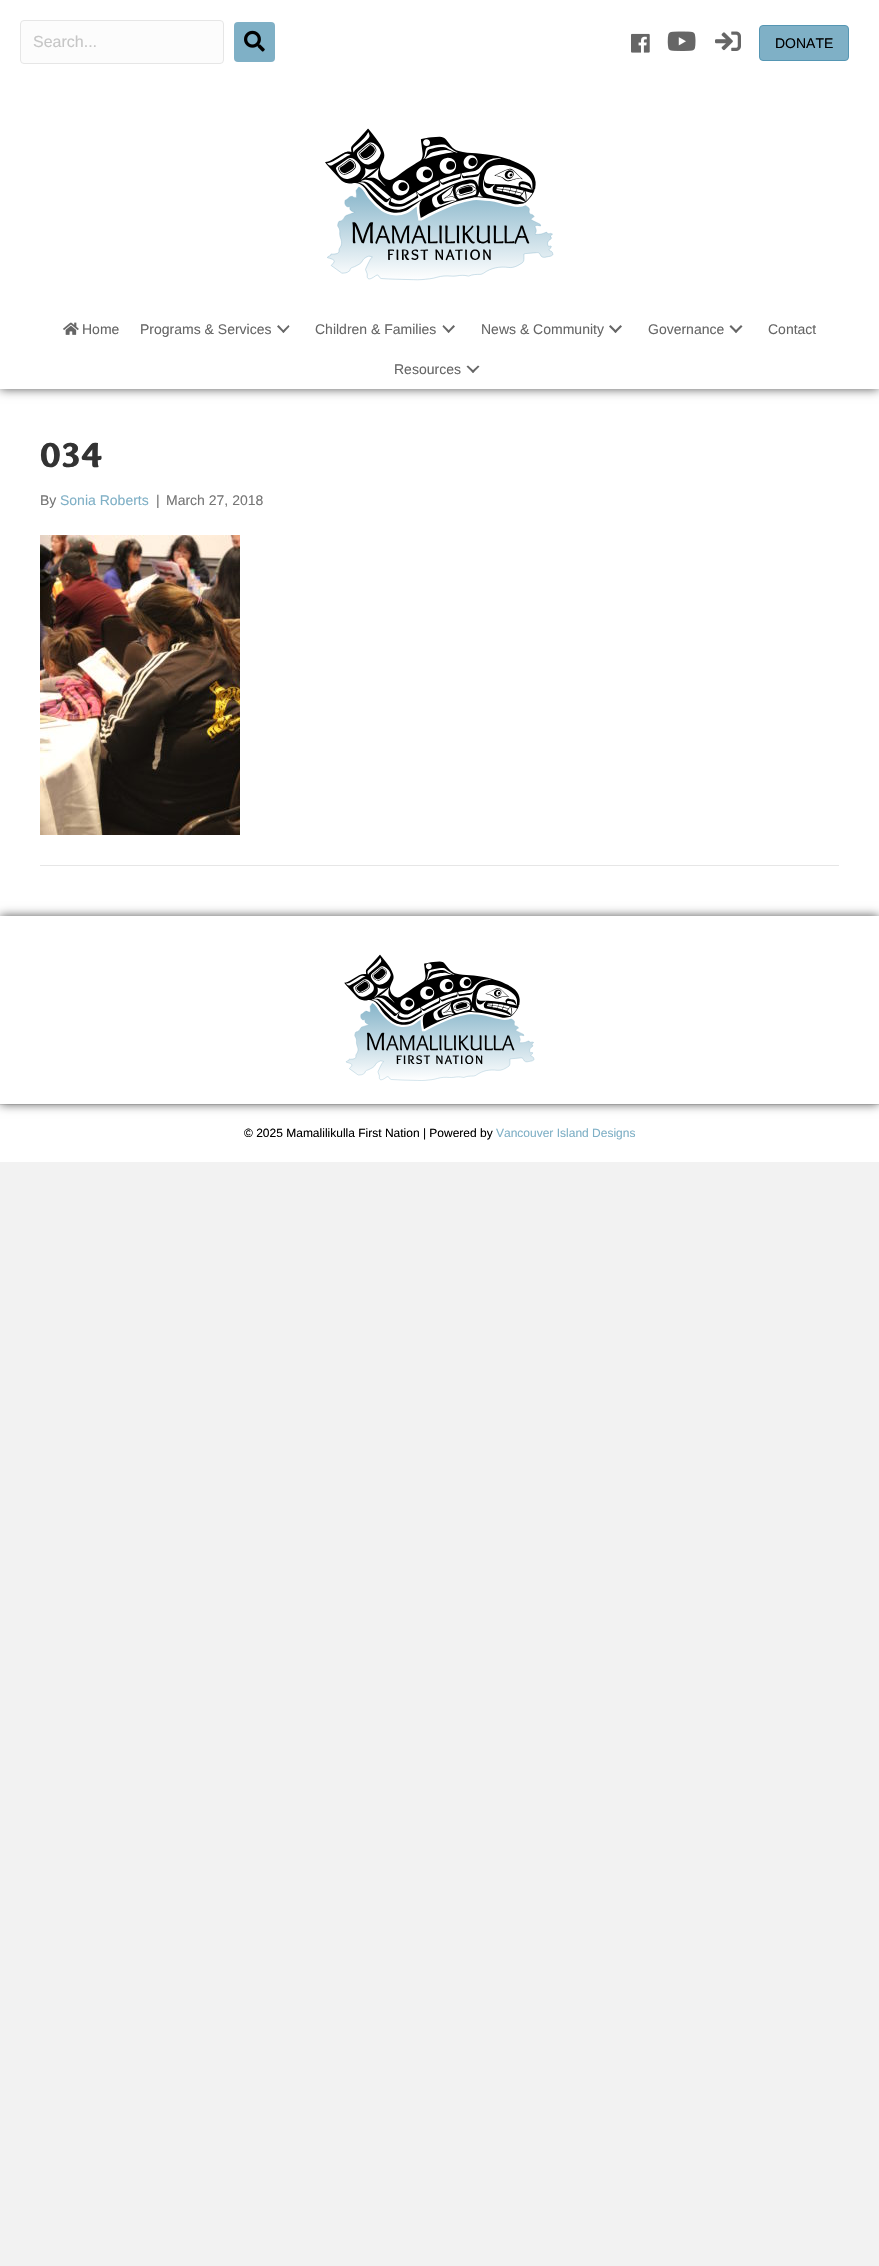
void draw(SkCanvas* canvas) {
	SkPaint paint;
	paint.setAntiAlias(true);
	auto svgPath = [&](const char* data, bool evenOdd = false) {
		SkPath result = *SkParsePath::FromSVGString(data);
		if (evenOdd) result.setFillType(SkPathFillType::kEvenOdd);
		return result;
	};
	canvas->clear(0xfff2f2f2);
	paint.setColor(0xffffffff);
	canvas->drawRect(SkRect::MakeXYWH(0, 389, 879, 527), paint);
	paint.setColor(0xa8000000);
	paint.setMaskFilter(SkMaskFilter::MakeBlur(kNormal_SkBlurStyle, 5));
	canvas->drawRect(SkRect::MakeXYWH(0, 0, 879, 389), paint);
	paint.setMaskFilter(nullptr);
	paint.setColor(0xffffffff);
	canvas->drawRect(SkRect::MakeXYWH(0, 0, 879, 389), paint);
	paint.setColor(0xfffcfcfc);
	canvas->drawRoundRect(SkRect::MakeXYWH(20.5, 20.5, 203, 43), 3.5, 3.5, paint);
	paint.setStroke(true);
	paint.setStrokeWidth(1);
	paint.setColor(0xffe6e6e6);
	canvas->drawRoundRect(SkRect::MakeXYWH(20.5, 20.5, 203, 43), 3.5, 3.5, paint);
	SkFont f1(fontMgr->matchFamilyStyle("Liberation Sans", SkFontStyle::Normal()), 16);
	f1.setSubpixel(true);
	paint.setStroke(false);
	paint.setColor(0xffc6c6c6);
	canvas->drawString("Search...", 33, 47, f1, paint);
	paint.setColor(0xff7fb0c6);
	canvas->drawRoundRect(SkRect::MakeXYWH(234, 22, 41, 40), 4, 4, paint);
	canvas->drawImageRect(SkImages::DeferredFromEncodedData(SkData::MakeFromFileName("img1.png")), SkRect::MakeXYWH(244, 30, 21, 22), SkSamplingOptions());
	canvas->drawImageRect(SkImages::DeferredFromEncodedData(SkData::MakeFromFileName("img2.png")), SkRect::MakeXYWH(631, 33, 19, 20), SkSamplingOptions());
	canvas->drawImageRect(SkImages::DeferredFromEncodedData(SkData::MakeFromFileName("img3.png")), SkRect::MakeXYWH(667, 31, 29, 20), SkSamplingOptions());
	canvas->drawImageRect(SkImages::DeferredFromEncodedData(SkData::MakeFromFileName("img4.png")), SkRect::MakeXYWH(715, 31, 26, 20), SkSamplingOptions());
	canvas->drawRoundRect(SkRect::MakeXYWH(759.5, 25.5, 89, 35), 3.5, 3.5, paint);
	paint.setStroke(true);
	paint.setColor(0xff5596b3);
	canvas->drawRoundRect(SkRect::MakeXYWH(759.5, 25.5, 89, 35), 3.5, 3.5, paint);
	SkFont f2(fontMgr->matchFamilyStyle("Liberation Sans", SkFontStyle::Normal()), 14);
	f2.setSubpixel(true);
	paint.setStroke(false);
	paint.setColor(0xff000000);
	canvas->drawString("DONATE", 775, 48, f2, paint);
	canvas->drawImageRect(SkImages::DeferredFromEncodedData(SkData::MakeFromFileName("img5.png")), SkRect::MakeXYWH(325, 128, 229, 153), SkSamplingOptions());
	canvas->drawImageRect(SkImages::DeferredFromEncodedData(SkData::MakeFromFileName("img6.png")), SkRect::MakeXYWH(63, 322, 16, 13), SkSamplingOptions());
	paint.setColor(0xff666666);
	canvas->drawString("Home", 82, 334, f2, paint);
	canvas->drawString("Programs & Services", 140, 334, f2, paint);
	canvas->drawPath(svgPath("M288.5 325L289.5 326.5L283.5 333L282 331.5Z"), paint);
	canvas->drawPath(svgPath("M278.5 325L284.5 331.5L283.5 333L277 326.5Z"), paint);
	canvas->drawString("Children & Families", 315, 334, f2, paint);
	canvas->drawPath(svgPath("M453.5 325L455 326.5L448.5 333L447.5 331.5Z"), paint);
	canvas->drawPath(svgPath("M443.5 325L450 331.5L448.5 333L442.5 326.5Z"), paint);
	canvas->drawString("News & Community", 481, 334, f2, paint);
	canvas->drawPath(svgPath("M620.5 325L622 326.5L615.5 333L614 331.5Z"), paint);
	canvas->drawPath(svgPath("M610.5 325L617 331.5L615.5 333L609 326.5Z"), paint);
	canvas->drawString("Governance", 648, 334, f2, paint);
	canvas->drawPath(svgPath("M741 325L742.5 326.5L736 333L734.5 331.5Z"), paint);
	canvas->drawPath(svgPath("M731 325L737.5 331.5L736 333L729.5 326.5Z"), paint);
	canvas->drawString("Contact", 768, 334, f2, paint);
	canvas->drawString("Resources", 394, 374, f2, paint);
	canvas->drawPath(svgPath("M478 365.5L479.5 366.5L473 373L471.5 371.5Z"), paint);
	canvas->drawPath(svgPath("M468 365.5L474.5 371.5L473 373L466.5 366.5Z"), paint);
	SkFont f3(fontMgr->matchFamilyStyle("Overlock", SkFontStyle(900, SkFontStyle::kNormal_Width, SkFontStyle::kUpright_Slant)), 36);
	f3.setSubpixel(true);
	paint.setColor(0xff333333);
	canvas->drawString("034", 40, 467, f3, paint);
	paint.setColor(0xff757575);
	canvas->drawString("By", 40, 505, f2, paint);
	paint.setColor(0xff7fb0c6);
	canvas->drawString("Sonia Roberts", 60, 505, f2, paint);
	paint.setColor(0xff757575);
	canvas->drawString("|", 156, 505, f2, paint);
	canvas->drawString("March 27, 2018", 166, 505, f2, paint);
	canvas->drawImageRect(SkImages::DeferredFromEncodedData(SkData::MakeFromFileName("img7.png")), SkRect::MakeXYWH(40, 535, 200, 300), SkSamplingOptions());
	paint.setColor(0xffe6e6e6);
	canvas->drawRect(SkRect::MakeXYWH(40, 865, 799, 1), paint);
	paint.setColor(0xffffffff);
	canvas->drawRect(SkRect::MakeXYWH(0, 1105, 879, 57), paint);
	paint.setColor(0xffe6e6e6);
	canvas->drawRect(SkRect::MakeXYWH(0, 1104, 879, 1), paint);
	paint.setColor(0xa8000000);
	paint.setMaskFilter(SkMaskFilter::MakeBlur(kNormal_SkBlurStyle, 5));
	canvas->drawRect(SkRect::MakeXYWH(0, 916, 879, 188), paint);
	paint.setMaskFilter(nullptr);
	paint.setColor(0xffffffff);
	canvas->drawRect(SkRect::MakeXYWH(0, 916, 879, 188), paint);
	canvas->drawImageRect(SkImages::DeferredFromEncodedData(SkData::MakeFromFileName("img8.png")), SkRect::MakeXYWH(344, 954, 191, 127), SkSamplingOptions());
	SkFont f4(fontMgr->matchFamilyStyle("Liberation Sans", SkFontStyle::Normal()), 12);
	f4.setSubpixel(true);
	paint.setColor(0xff000000);
	canvas->drawString("© 2025 Mamalilikulla First Nation | Powered by", 244, 1137, f4, paint);
	paint.setColor(0xff7fb0c6);
	canvas->drawString("Vancouver Island Designs", 496, 1137, f4, paint);
}
